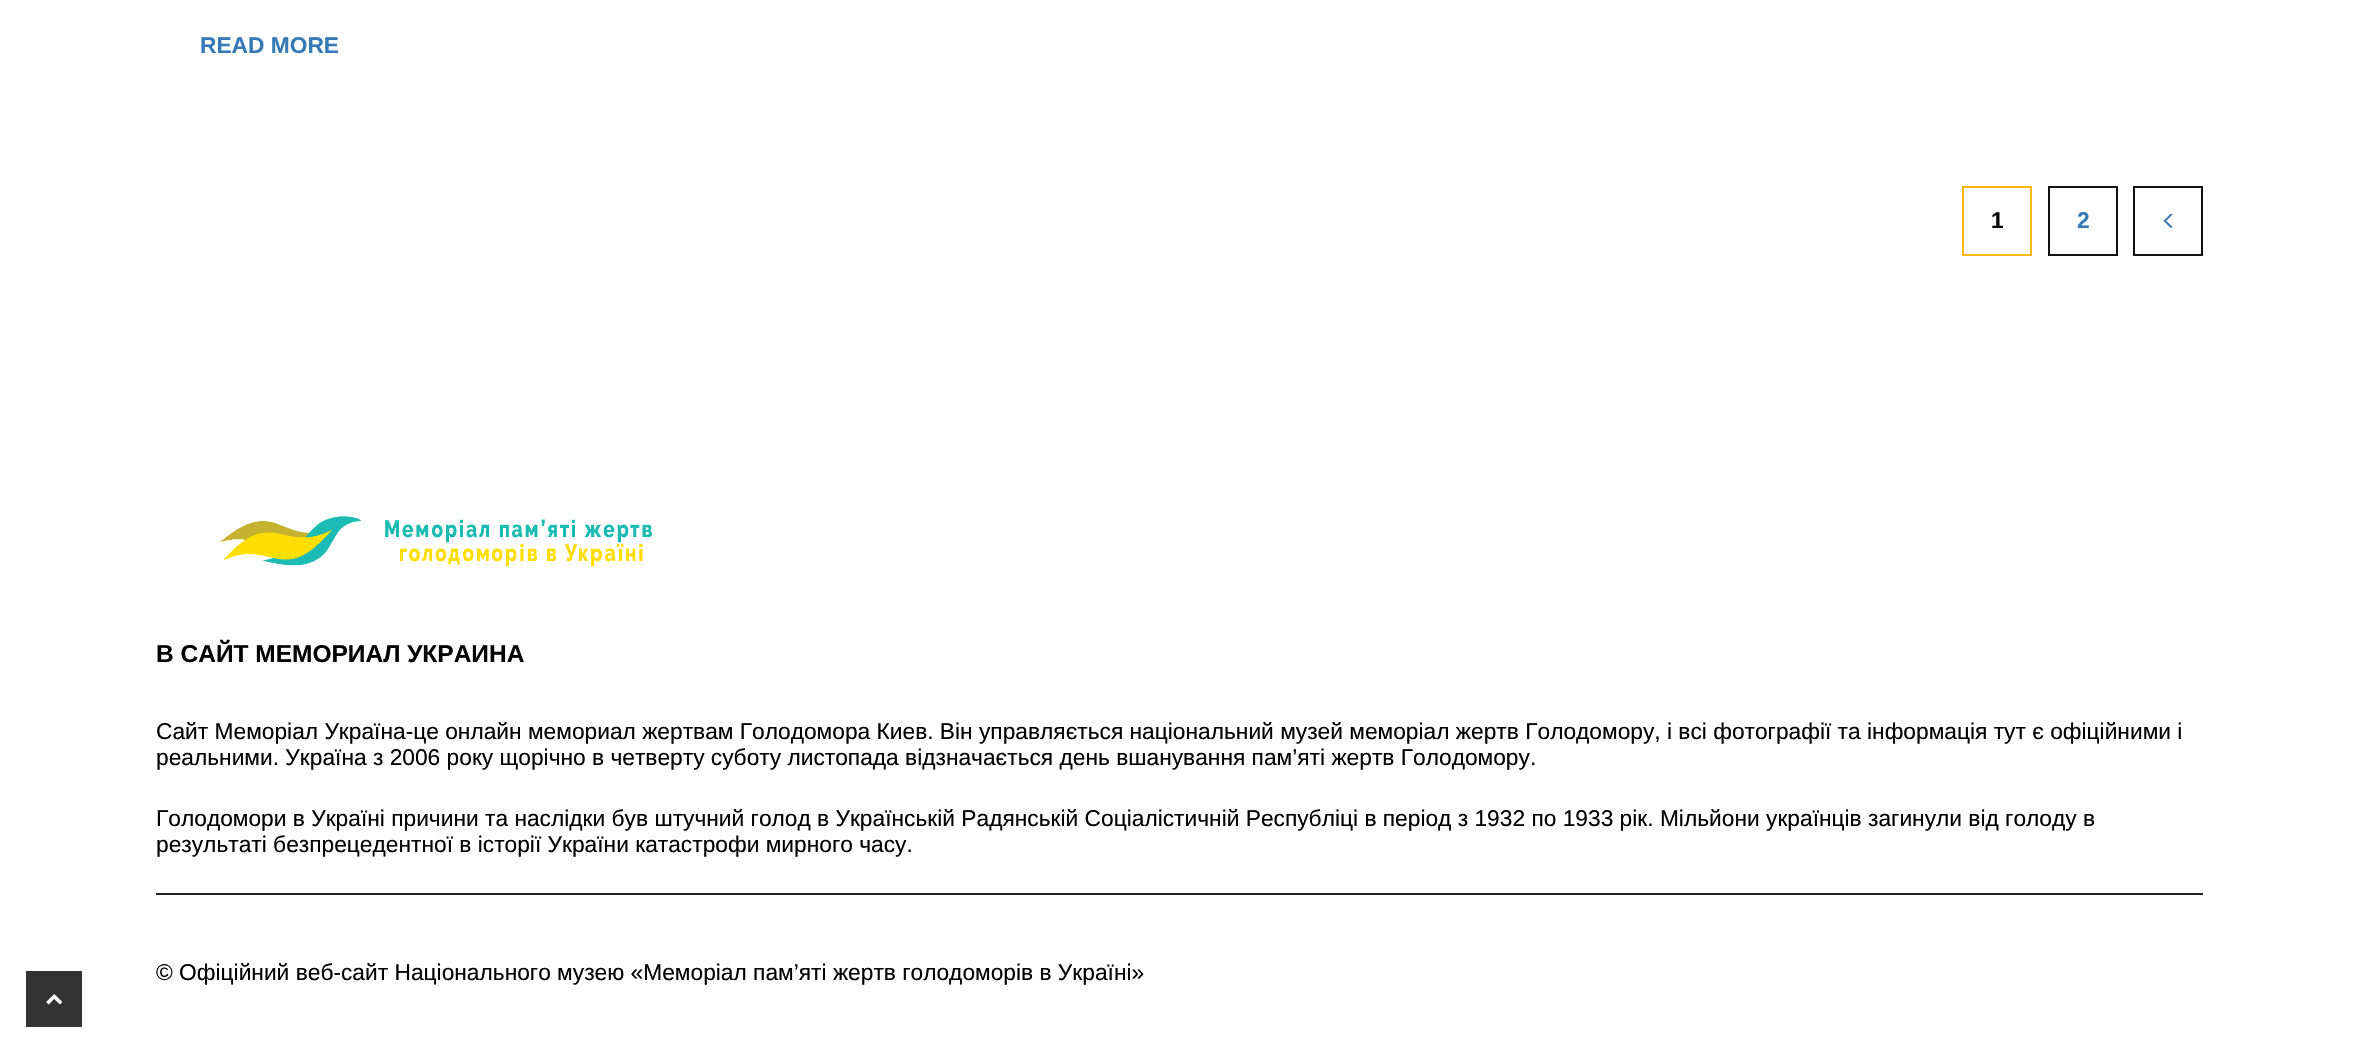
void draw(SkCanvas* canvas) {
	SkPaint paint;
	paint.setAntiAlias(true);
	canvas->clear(0xffffffff);
	SkFont f1(fontMgr->matchFamilyStyle("Liberation Sans", SkFontStyle::Bold()), 22.75);
	f1.setSubpixel(true);
	paint.setColor(0xff337ab7);
	canvas->drawString("READ MORE", 200, 53, f1, paint);
	paint.setStroke(true);
	paint.setStrokeWidth(2);
	paint.setColor(0xffffb606);
	canvas->drawRect(SkRect::MakeXYWH(1963, 187, 68, 68), paint);
	paint.setStroke(false);
	paint.setColor(0xff000000);
	canvas->drawString("1", 1991, 228, f1, paint);
	paint.setStroke(true);
	paint.setColor(0xff111111);
	canvas->drawRect(SkRect::MakeXYWH(2049, 187, 68, 68), paint);
	paint.setStroke(false);
	paint.setColor(0xff337ab7);
	canvas->drawString("2", 2077, 228, f1, paint);
	paint.setStroke(true);
	paint.setColor(0xff111111);
	canvas->drawRect(SkRect::MakeXYWH(2134, 187, 68, 68), paint);
	canvas->drawImageRect(SkImages::DeferredFromEncodedData(SkData::MakeFromFileName("img1.png")), SkRect::MakeXYWH(2163, 213, 10, 15), SkSamplingOptions());
	canvas->drawImageRect(SkImages::DeferredFromEncodedData(SkData::MakeFromFileName("img2.png")), SkRect::MakeXYWH(220, 516, 432, 51), SkSamplingOptions());
	SkFont f2(fontMgr->matchFamilyStyle("Liberation Sans", SkFontStyle::Bold()), 24.5);
	f2.setSubpixel(true);
	paint.setStroke(false);
	paint.setColor(0xff000000);
	canvas->drawString("В САЙТ МЕМОРИАЛ УКРАИНА", 156, 662, f2, paint);
	SkFont f3(fontMgr->matchFamilyStyle("Liberation Sans", SkFontStyle::Normal()), 22.75);
	f3.setSubpixel(true);
	canvas->drawString("Сайт Меморіал Україна-це онлайн мемориал жертвам Голодомора Киев. Він управляється національний музей меморіал жертв Голодомору, і всі фотографії та інформація тут є офіційними і", 156, 739, f3, paint);
	canvas->drawString("реальними. Україна з 2006 року щорічно в четверту суботу листопада відзначається день вшанування пам’яті жертв Голодомору.", 156, 765, f3, paint);
	canvas->drawString("Голодомори в Україні причини та наслідки був штучний голод в Українській Радянській Соціалістичній Республіці в період з 1932 по 1933 рік. Мільйони українців загинули від голоду в", 156, 826, f3, paint);
	canvas->drawString("результаті безпрецедентної в історії України катастрофи мирного часу.", 156, 852, f3, paint);
	paint.setColor(0xff222222);
	canvas->drawRect(SkRect::MakeXYWH(156, 893, 2047, 2), paint);
	paint.setColor(0xff000000);
	canvas->drawString("© Офіційний веб-сайт Національного музею «Меморіал пам’яті жертв голодоморів в Україні»", 156, 980, f3, paint);
	paint.setColor(0xff333333);
	canvas->drawRect(SkRect::MakeXYWH(26, 971, 56, 56), paint);
	canvas->drawImageRect(SkImages::DeferredFromEncodedData(SkData::MakeFromFileName("img3.png")), SkRect::MakeXYWH(46, 994, 17, 11), SkSamplingOptions());
}
